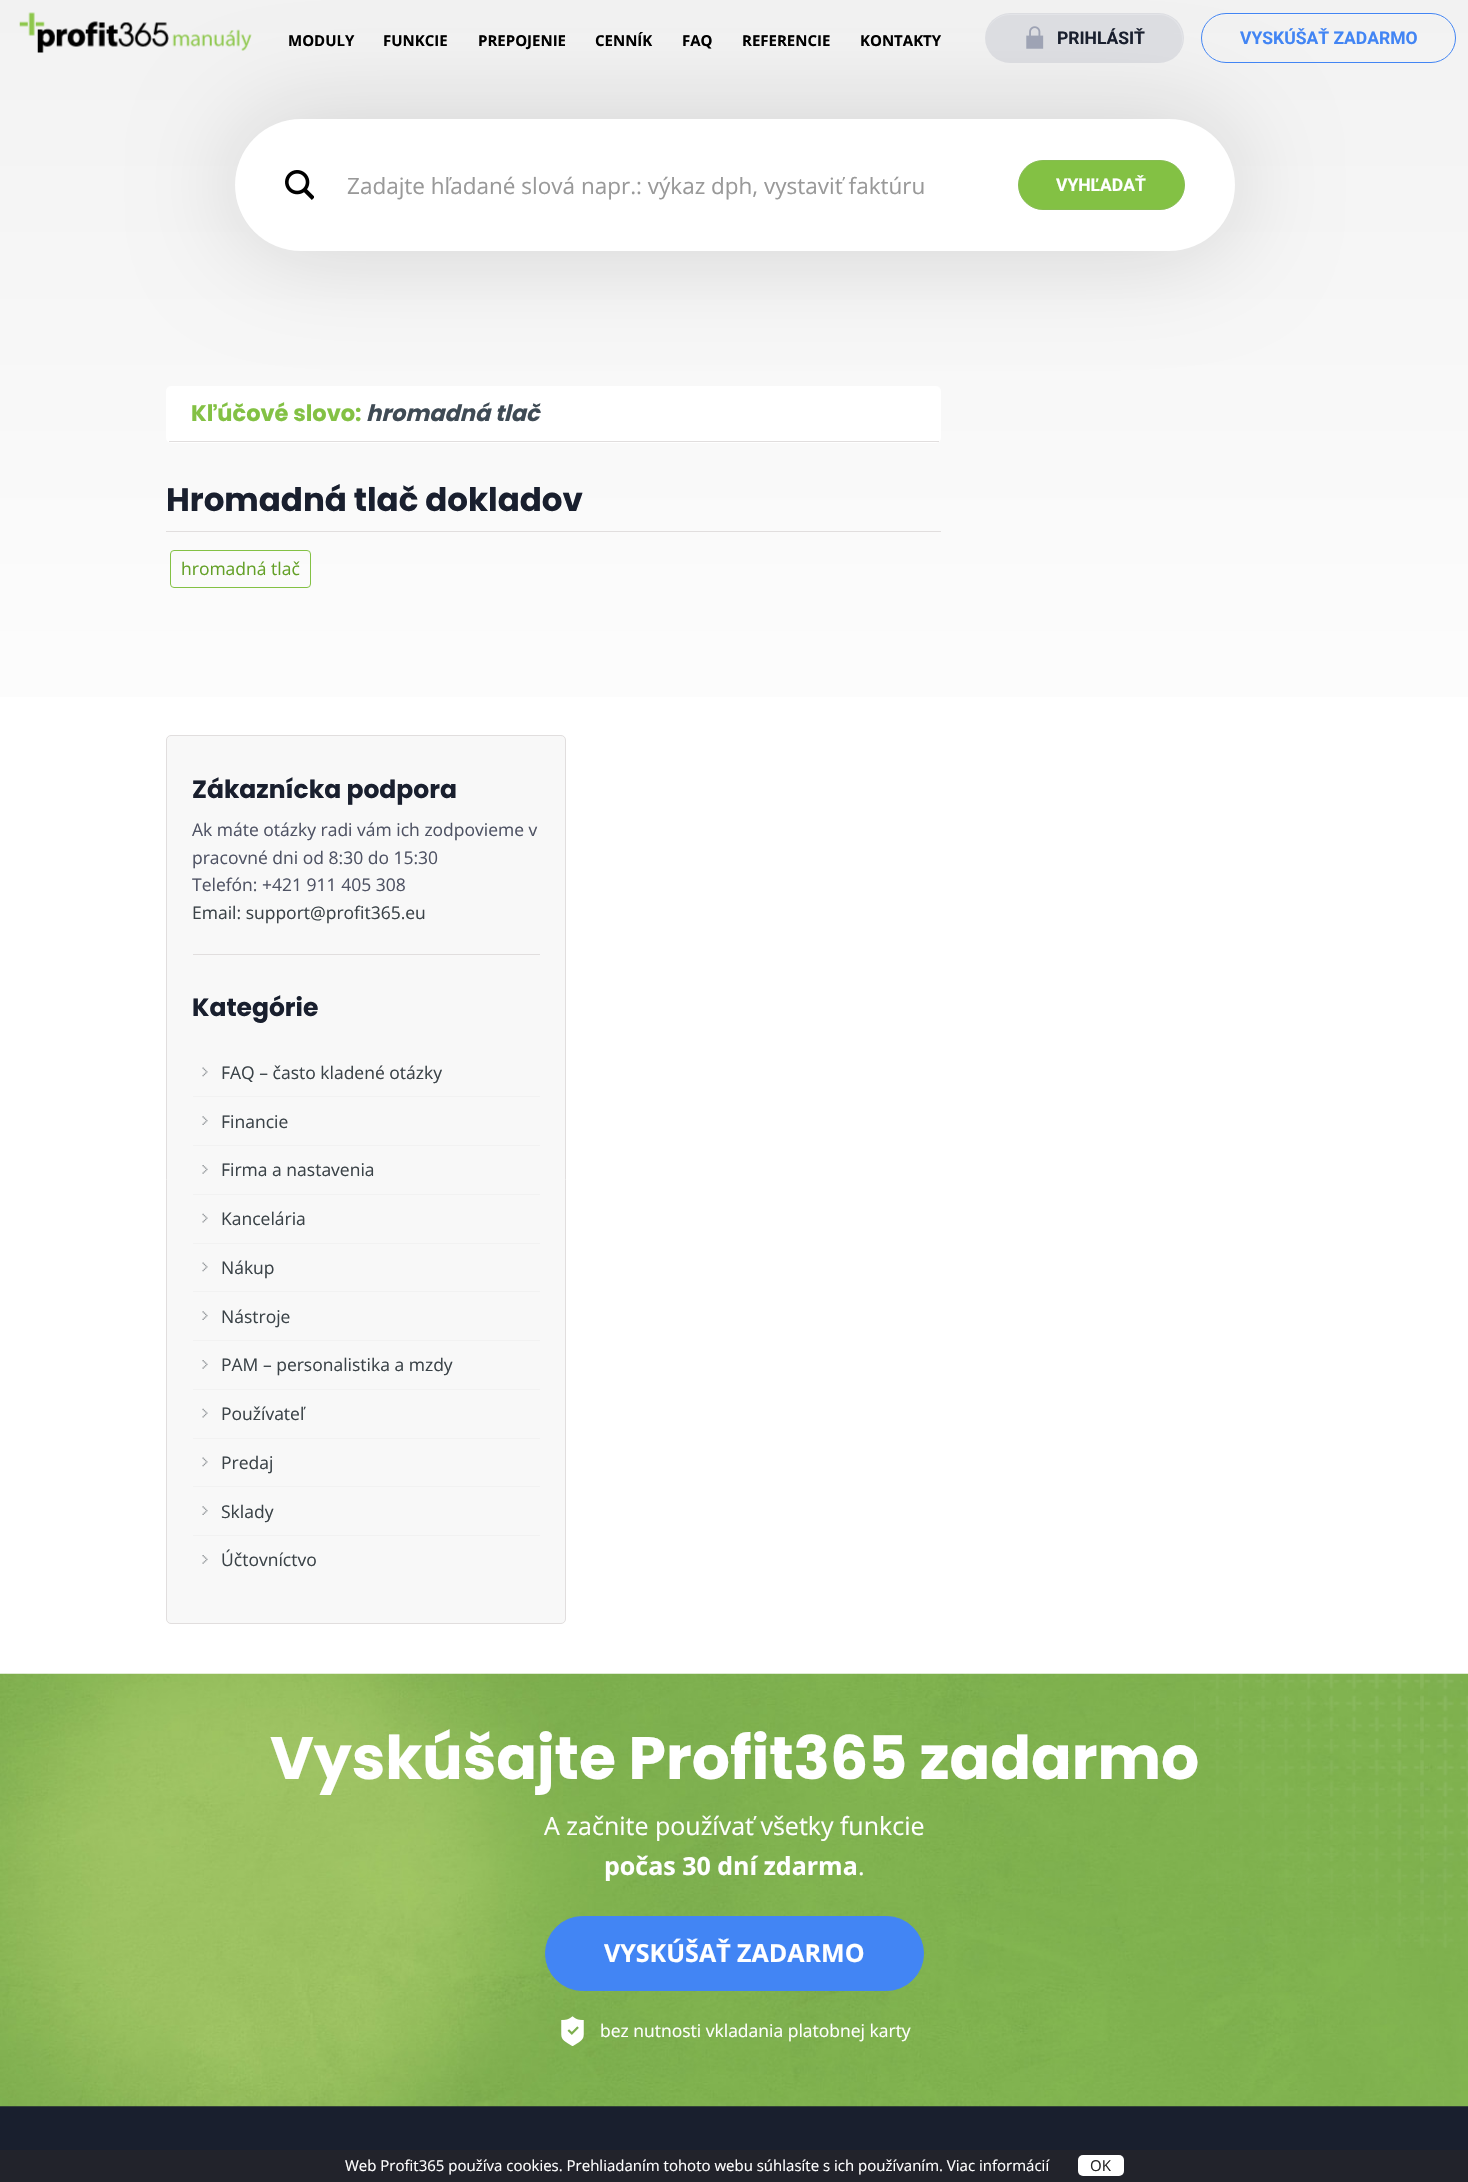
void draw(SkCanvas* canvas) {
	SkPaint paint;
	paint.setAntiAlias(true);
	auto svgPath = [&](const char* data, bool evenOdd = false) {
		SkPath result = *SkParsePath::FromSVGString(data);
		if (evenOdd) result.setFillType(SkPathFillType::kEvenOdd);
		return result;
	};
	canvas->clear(0xffffffff);
	{
		const SkColor colors[] = {0xfff2f2f2, 0xffffffff};
		const float stops[] = {0, 1};
		const SkPoint ends[] = {{734, 0}, {734, 863}};
		paint.setShader(SkGradientShader::MakeLinear(ends, colors, stops, 2, SkTileMode::kClamp));
		paint.setAlpha(255);
	}
	canvas->drawRect(SkRect::MakeXYWH(0, 0, 1468, 697), paint);
	paint.setShader(nullptr);
	paint.setColor(0xffffffff);
	canvas->drawRoundRect(SkRect::MakeXYWH(166, 386, 775, 57), 5, 5, paint);
	paint.setColor(0x26000000);
	paint.setMaskFilter(SkMaskFilter::MakeBlur(kNormal_SkBlurStyle, 50));
	canvas->drawRoundRect(SkRect::MakeXYWH(235, 119, 1000, 132), 66, 66, paint);
	paint.setMaskFilter(nullptr);
	canvas->drawImageRect(SkImages::DeferredFromEncodedData(SkData::MakeFromFileName("img1.png")), SkRect::MakeXYWH(19, 12, 233, 41), SkSamplingOptions());
	SkFont f1(fontMgr->matchFamilyStyle("Open Sans", SkFontStyle::Bold()), 15);
	f1.setSubpixel(true);
	paint.setColor(0xff000000);
	canvas->drawString("MODULY", 288, 46, f1, paint);
	canvas->drawString("FUNKCIE", 383, 46, f1, paint);
	canvas->drawString("PREPOJENIE", 478, 46, f1, paint);
	canvas->drawString("CENNÍK", 595, 46, f1, paint);
	canvas->drawString("FAQ", 682, 46, f1, paint);
	canvas->drawString("REFERENCIE", 742, 46, f1, paint);
	canvas->drawString("KONTAKTY", 860, 46, f1, paint);
	paint.setColor(0x409ea3b4);
	canvas->drawRoundRect(SkRect::MakeXYWH(985, 13, 199, 50), 25, 25, paint);
	paint.setColor(0xffe3e4e8);
	canvas->drawPath(svgPath("M1010 15H1159C1172 15 1182 26 1182 39C1182 43 1181 47 1179 51C1182 47 1183 42 1183 38C1183 25 1172 14 1160 14H1010C997 14 986 25 986 38C986 26 997 15 1010 15Z"), paint);
	canvas->drawImageRect(SkImages::DeferredFromEncodedData(SkData::MakeFromFileName("img2.png")), SkRect::MakeXYWH(1026, 26, 18, 23), SkSamplingOptions());
	SkFont f2(fontMgr->matchFamilyStyle("Roboto", SkFontStyle::Bold()), 17.5);
	f2.setSubpixel(true);
	paint.setColor(0xff191f2e);
	canvas->drawString("PRIHLÁSIŤ", 1057, 44, f2, paint);
	paint.setColor(0xfff5f5f5);
	canvas->drawPath(svgPath("M1226 15H1431C1444 15 1455 26 1455 38C1455 25 1444 14 1432 14H1226C1218 14 1210 19 1206 26C1211 19 1218 15 1226 15Z"), paint);
	paint.setStroke(true);
	paint.setStrokeWidth(1);
	paint.setColor(0xff4285f4);
	canvas->drawRoundRect(SkRect::MakeXYWH(1201.5, 13.5, 254, 49), 24.5, 24.5, paint);
	paint.setStroke(false);
	canvas->drawString("VYSKÚŠAŤ ZADARMO", 1240, 44, f2, paint);
	paint.setColor(0xffffffff);
	canvas->drawRoundRect(SkRect::MakeXYWH(235, 119, 1000, 132), 66, 66, paint);
	canvas->drawImageRect(SkImages::DeferredFromEncodedData(SkData::MakeFromFileName("img3.png")), SkRect::MakeXYWH(285, 170, 29, 30), SkSamplingOptions());
	SkFont f3(fontMgr->matchFamilyStyle("Open Sans", SkFontStyle::Normal()), 22.5);
	f3.setSubpixel(true);
	paint.setColor(0xff999999);
	canvas->drawString("Zadajte hľadané slová napr.: výkaz dph, vystaviť faktúru", 347, 194, f3, paint);
	paint.setColor(0xff83c144);
	canvas->drawRoundRect(SkRect::MakeXYWH(1018.5, 160.5, 166, 49), 24.5, 24.5, paint);
	paint.setStroke(true);
	paint.setColor(0xff87bc53);
	canvas->drawRoundRect(SkRect::MakeXYWH(1018.5, 160.5, 166, 49), 24.5, 24.5, paint);
	paint.setStroke(false);
	paint.setColor(0xffffffff);
	canvas->drawString("VYHĽADAŤ", 1056, 191, f2, paint);
	paint.setColor(0xffe1dede);
	canvas->drawRect(SkRect::MakeXYWH(169, 441, 770, 1), paint);
	SkFont f4(fontMgr->matchFamilyStyle("Poppins", SkFontStyle::Bold()), 22.5);
	f4.setSubpixel(true);
	paint.setColor(0xff83c144);
	canvas->drawString("Kľúčové slovo:", 191, 421, f4, paint);
	SkFont f5(fontMgr->matchFamilyStyle("Poppins", SkFontStyle::BoldItalic()), 22.5);
	f5.setSubpixel(true);
	paint.setColor(0xff3f4b55);
	canvas->drawString("hromadná tlač", 366, 421, f5, paint);
	paint.setColor(0xffe1dede);
	canvas->drawRect(SkRect::MakeXYWH(166, 531, 775, 1), paint);
	SkFont f6(fontMgr->matchFamilyStyle("Poppins", SkFontStyle::Bold()), 32.5);
	f6.setSubpixel(true);
	paint.setColor(0xff191f2e);
	canvas->drawString("Hromadná tlač dokladov", 166, 511, f6, paint);
	paint.setStroke(true);
	paint.setColor(0xff83c144);
	canvas->drawRoundRect(SkRect::MakeXYWH(170.5, 550.5, 140, 37), 3.5, 3.5, paint);
	SkFont f7(fontMgr->matchFamilyStyle("Open Sans", SkFontStyle::Normal()), 17.5);
	f7.setSubpixel(true);
	paint.setStroke(false);
	paint.setColor(0xff63a027);
	canvas->drawString("hromadná tlač", 181, 575, f7, paint);
	paint.setColor(0xfff8f8f8);
	canvas->drawRoundRect(SkRect::MakeXYWH(166.5, 735.5, 399, 888), 4.5, 4.5, paint);
	paint.setStroke(true);
	paint.setColor(0xffe1dede);
	canvas->drawRoundRect(SkRect::MakeXYWH(166.5, 735.5, 399, 888), 4.5, 4.5, paint);
	paint.setStroke(false);
	canvas->drawRect(SkRect::MakeXYWH(193, 954, 347, 1), paint);
	SkFont f8(fontMgr->matchFamilyStyle("Poppins", SkFontStyle::Bold()), 25);
	f8.setSubpixel(true);
	paint.setColor(0xff191f2e);
	canvas->drawString("Zákaznícka podpora", 192, 798, f8, paint);
	paint.setColor(0xff4f5364);
	canvas->drawString("Ak máte otázky radi vám ich zodpovieme v", 192, 836, f7, paint);
	canvas->drawString("pracovné dni od 8:30 do 15:30", 192, 864, f7, paint);
	canvas->drawString("Telefón: +421 911 405 308", 192, 891, f7, paint);
	paint.setColor(0xff3b4348);
	canvas->drawString("Email: support@profit365.eu", 192, 919, f7, paint);
	paint.setColor(0xff191f2e);
	canvas->drawString("Kategórie", 192, 1016, f8, paint);
	canvas->drawImageRect(SkImages::DeferredFromEncodedData(SkData::MakeFromFileName("img4.png")), SkRect::MakeXYWH(202, 1067, 6, 10), SkSamplingOptions());
	paint.setColor(0xfff2f2f2);
	canvas->drawRect(SkRect::MakeXYWH(193, 1096, 347, 1), paint);
	paint.setColor(0xff3b4348);
	canvas->drawString("FAQ – často kladené otázky", 221, 1079, f7, paint);
	canvas->drawImageRect(SkImages::DeferredFromEncodedData(SkData::MakeFromFileName("img5.png")), SkRect::MakeXYWH(202, 1116, 6, 9), SkSamplingOptions());
	paint.setColor(0xfff2f2f2);
	canvas->drawRect(SkRect::MakeXYWH(193, 1145, 347, 1), paint);
	paint.setColor(0xff3b4348);
	canvas->drawString("Financie", 221, 1128, f7, paint);
	canvas->drawImageRect(SkImages::DeferredFromEncodedData(SkData::MakeFromFileName("img6.png")), SkRect::MakeXYWH(202, 1165, 6, 9), SkSamplingOptions());
	paint.setColor(0xfff2f2f2);
	canvas->drawRect(SkRect::MakeXYWH(193, 1194, 347, 1), paint);
	paint.setColor(0xff3b4348);
	canvas->drawString("Firma a nastavenia", 221, 1176, f7, paint);
	canvas->drawImageRect(SkImages::DeferredFromEncodedData(SkData::MakeFromFileName("img7.png")), SkRect::MakeXYWH(202, 1213, 6, 10), SkSamplingOptions());
	paint.setColor(0xfff2f2f2);
	canvas->drawRect(SkRect::MakeXYWH(193, 1243, 347, 1), paint);
	paint.setColor(0xff3b4348);
	canvas->drawString("Kancelária", 221, 1225, f7, paint);
	canvas->drawImageRect(SkImages::DeferredFromEncodedData(SkData::MakeFromFileName("img4.png")), SkRect::MakeXYWH(202, 1262, 6, 10), SkSamplingOptions());
	paint.setColor(0xfff2f2f2);
	canvas->drawRect(SkRect::MakeXYWH(193, 1291, 347, 1), paint);
	paint.setColor(0xff3b4348);
	canvas->drawString("Nákup", 221, 1274, f7, paint);
	canvas->drawImageRect(SkImages::DeferredFromEncodedData(SkData::MakeFromFileName("img5.png")), SkRect::MakeXYWH(202, 1311, 6, 9), SkSamplingOptions());
	paint.setColor(0xfff2f2f2);
	canvas->drawRect(SkRect::MakeXYWH(193, 1340, 347, 1), paint);
	paint.setColor(0xff3b4348);
	canvas->drawString("Nástroje", 221, 1323, f7, paint);
	canvas->drawImageRect(SkImages::DeferredFromEncodedData(SkData::MakeFromFileName("img6.png")), SkRect::MakeXYWH(202, 1360, 6, 9), SkSamplingOptions());
	paint.setColor(0xfff2f2f2);
	canvas->drawRect(SkRect::MakeXYWH(193, 1389, 347, 1), paint);
	paint.setColor(0xff3b4348);
	canvas->drawString("PAM – personalistika a mzdy", 221, 1371, f7, paint);
	canvas->drawImageRect(SkImages::DeferredFromEncodedData(SkData::MakeFromFileName("img7.png")), SkRect::MakeXYWH(202, 1408, 6, 10), SkSamplingOptions());
	paint.setColor(0xfff2f2f2);
	canvas->drawRect(SkRect::MakeXYWH(193, 1438, 347, 1), paint);
	paint.setColor(0xff3b4348);
	canvas->drawString("Používateľ", 221, 1420, f7, paint);
	canvas->drawImageRect(SkImages::DeferredFromEncodedData(SkData::MakeFromFileName("img4.png")), SkRect::MakeXYWH(202, 1457, 6, 10), SkSamplingOptions());
	paint.setColor(0xfff2f2f2);
	canvas->drawRect(SkRect::MakeXYWH(193, 1486, 347, 1), paint);
	paint.setColor(0xff3b4348);
	canvas->drawString("Predaj", 221, 1469, f7, paint);
	canvas->drawImageRect(SkImages::DeferredFromEncodedData(SkData::MakeFromFileName("img5.png")), SkRect::MakeXYWH(202, 1506, 6, 9), SkSamplingOptions());
	paint.setColor(0xfff2f2f2);
	canvas->drawRect(SkRect::MakeXYWH(193, 1535, 347, 1), paint);
	paint.setColor(0xff3b4348);
	canvas->drawString("Sklady", 221, 1518, f7, paint);
	canvas->drawImageRect(SkImages::DeferredFromEncodedData(SkData::MakeFromFileName("img6.png")), SkRect::MakeXYWH(202, 1555, 6, 9), SkSamplingOptions());
	canvas->drawString("Účtovníctvo", 221, 1566, f7, paint);
	paint.setColor(0xff191f2e);
	canvas->drawRect(SkRect::MakeXYWH(0, 2106, 1468, 44), paint);
	canvas->drawImageRect(SkImages::DeferredFromEncodedData(SkData::MakeFromFileName("img8.png")), SkRect::MakeXYWH(0, 1673, 1468, 434), SkSamplingOptions());
	canvas->drawImageRect(SkImages::DeferredFromEncodedData(SkData::MakeFromFileName("img10.png")), SkRect::MakeXYWH(1194, 1674, 274, 274), SkSamplingOptions());
	SkFont f9(fontMgr->matchFamilyStyle("Poppins", SkFontStyle::Bold()), 60);
	f9.setSubpixel(true);
	paint.setColor(0xffffffff);
	canvas->drawString("Vyskúšajte Profit365 zadarmo", 270, 1779, f9, paint);
	SkFont f10(fontMgr->matchFamilyStyle("Open Sans", SkFontStyle::Normal()), 25);
	f10.setSubpixel(true);
	canvas->drawString("A začnite používať všetky funkcie", 544, 1835, f10, paint);
	SkFont f11(fontMgr->matchFamilyStyle("Open Sans", SkFontStyle::Bold()), 25);
	f11.setSubpixel(true);
	canvas->drawString("počas 30 dní zdarma", 604, 1875, f11, paint);
	canvas->drawString(".", 858, 1875, f10, paint);
	paint.setColor(0xff4285f4);
	canvas->drawRoundRect(SkRect::MakeXYWH(545.5, 1916.5, 378, 74), 37, 37, paint);
	paint.setStroke(true);
	canvas->drawRoundRect(SkRect::MakeXYWH(545.5, 1916.5, 378, 74), 37, 37, paint);
	paint.setStroke(false);
	paint.setColor(0xffffffff);
	canvas->drawString("VYSKÚŠAŤ ZADARMO", 604, 1962, f11, paint);
	canvas->drawImageRect(SkImages::DeferredFromEncodedData(SkData::MakeFromFileName("img9.png")), SkRect::MakeXYWH(561, 2016, 23, 30), SkSamplingOptions());
	canvas->drawString("bez nutnosti vkladania platobnej karty", 600, 2037, f7, paint);
	paint.setColor(0xff22232b);
	canvas->drawRect(SkRect::MakeXYWH(0, 2150, 1468, 32), paint);
	SkFont f12(fontMgr->matchFamilyStyle("Open Sans", SkFontStyle::Normal()), 15);
	f12.setSubpixel(true);
	paint.setColor(0xffffffff);
	canvas->drawString("Web Profit365 používa cookies. Prehliadaním tohoto webu súhlasíte s ich používaním. Viac informácií", 345, 2171, f12, paint);
	canvas->drawRoundRect(SkRect::MakeXYWH(1078, 2155, 46, 21), 5, 5, paint);
	paint.setColor(0xff272727);
	canvas->drawString("OK", 1090, 2171, f12, paint);
}
